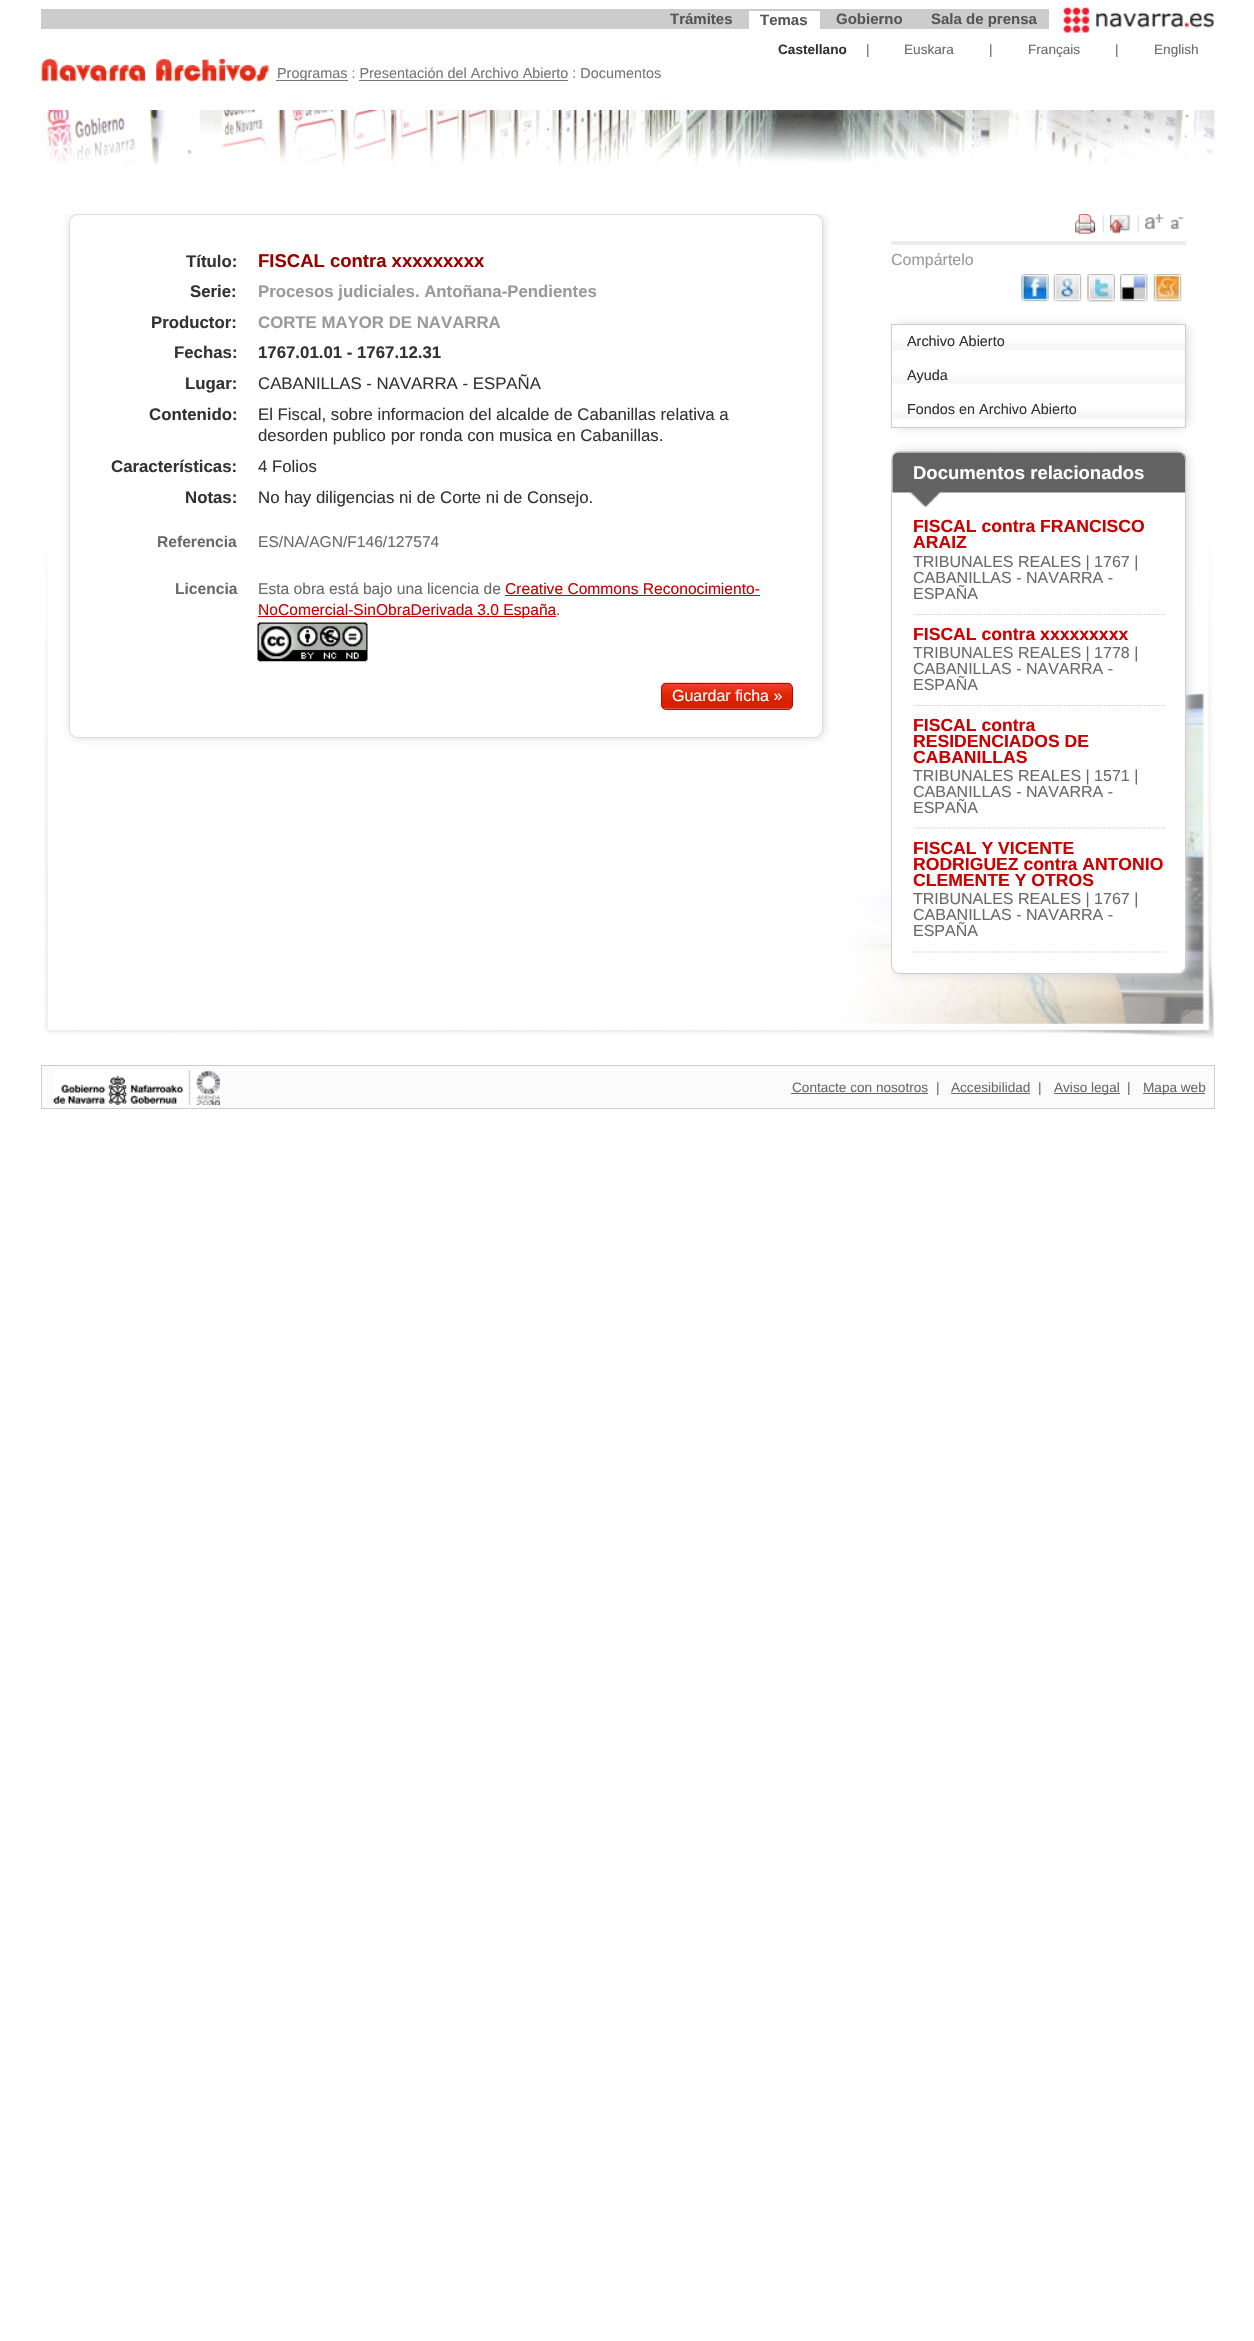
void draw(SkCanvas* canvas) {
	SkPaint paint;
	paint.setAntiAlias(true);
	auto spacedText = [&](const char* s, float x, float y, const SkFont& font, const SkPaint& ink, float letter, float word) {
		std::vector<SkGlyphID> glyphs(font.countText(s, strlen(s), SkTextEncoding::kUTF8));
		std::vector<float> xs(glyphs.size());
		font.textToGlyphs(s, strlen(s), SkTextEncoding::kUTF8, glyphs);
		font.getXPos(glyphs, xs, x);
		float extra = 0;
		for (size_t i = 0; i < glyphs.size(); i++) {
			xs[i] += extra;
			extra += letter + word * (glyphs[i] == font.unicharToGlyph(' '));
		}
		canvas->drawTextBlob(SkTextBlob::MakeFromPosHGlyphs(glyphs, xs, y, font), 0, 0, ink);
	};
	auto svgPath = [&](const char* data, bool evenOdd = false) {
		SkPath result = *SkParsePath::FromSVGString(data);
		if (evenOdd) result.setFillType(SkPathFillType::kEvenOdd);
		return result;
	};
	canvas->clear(0xffffffff);
	paint.setColor(0xffcccccc);
	canvas->drawRect(SkRect::MakeXYWH(41, 9, 1008, 20), paint);
	SkFont f1(fontMgr->matchFamilyStyle("Liberation Sans", SkFontStyle::Bold()), 15);
	f1.setSubpixel(true);
	paint.setColor(0xff555555);
	canvas->drawString("Trámites", 670, 24, f1, paint);
	paint.setColor(0xffffffff);
	canvas->drawRect(SkRect::MakeXYWH(749, 11, 71, 18), paint);
	paint.setColor(0xff555555);
	canvas->drawString("Temas", 760, 25, f1, paint);
	canvas->drawString("Gobierno", 836, 24, f1, paint);
	canvas->drawString("Sala de prensa", 931, 24, f1, paint);
	canvas->drawImageRect(SkImages::DeferredFromEncodedData(SkData::MakeFromFileName("img1.png")), SkRect::MakeXYWH(1063, 7, 151, 26), SkSamplingOptions());
	SkFont f2(fontMgr->matchFamilyStyle("Liberation Sans", SkFontStyle::Bold()), 13.6);
	f2.setSubpixel(true);
	paint.setColor(0xff333333);
	canvas->drawString("Castellano", 778, 54, f2, paint);
	SkFont f3(fontMgr->matchFamilyStyle("Liberation Sans", SkFontStyle::Normal()), 13.6);
	f3.setSubpixel(true);
	paint.setColor(0xff6a6a6a);
	canvas->drawString("|", 866, 54, f3, paint);
	canvas->drawString("Euskara", 904, 54, f3, paint);
	canvas->drawString("|", 989, 54, f3, paint);
	canvas->drawString("Français", 1028, 54, f3, paint);
	canvas->drawString("|", 1115, 54, f3, paint);
	canvas->drawString("English", 1154, 54, f3, paint);
	canvas->drawImageRect(SkImages::DeferredFromEncodedData(SkData::MakeFromFileName("img2.png")), SkRect::MakeXYWH(41, 58, 228, 24), SkSamplingOptions());
	paint.setColor(0xff777777);
	canvas->drawRect(SkRect::MakeXYWH(276, 80, 72, 1), paint);
	SkFont f4(fontMgr->matchFamilyStyle("Liberation Sans", SkFontStyle::Normal()), 14.4);
	f4.setSubpixel(true);
	canvas->drawString("Programas : Presentación del Archivo Abierto : Documentos", 277, 78, f4, paint);
	canvas->drawRect(SkRect::MakeXYWH(359, 80, 209, 1), paint);
	canvas->drawImageRect(SkImages::DeferredFromEncodedData(SkData::MakeFromFileName("img3.png")), SkRect::MakeXYWH(41, 110, 1174, 59), SkSamplingOptions());
	canvas->drawImageRect(SkImages::DeferredFromEncodedData(SkData::MakeFromFileName("img4.png")), SkRect::MakeXYWH(44, 548, 1170, 491), SkSamplingOptions());
	canvas->save();
	canvas->clipRect(SkRect::MakeXYWH(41, 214, 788, 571));
	paint.setColor(0xffdbdbdb);
	paint.setMaskFilter(SkMaskFilter::MakeBlur(kNormal_SkBlurStyle, 4.5));
	canvas->drawRoundRect(SkRect::MakeXYWH(70, 214, 754, 524), 9, 9, paint);
	paint.setMaskFilter(nullptr);
	canvas->restore();
	paint.setColor(0xffffffff);
	canvas->drawRoundRect(SkRect::MakeXYWH(69.5, 214.5, 753, 523), 8.5, 8.5, paint);
	paint.setStroke(true);
	paint.setStrokeWidth(1);
	paint.setColor(0xffdddddd);
	canvas->drawRoundRect(SkRect::MakeXYWH(69.5, 214.5, 753, 523), 8.5, 8.5, paint);
	SkFont f5(fontMgr->matchFamilyStyle("Liberation Sans", SkFontStyle::Bold()), 16.8);
	f5.setSubpixel(true);
	paint.setStroke(false);
	paint.setColor(0xff333333);
	canvas->drawString("Título:", 186, 267, f5, paint);
	SkFont f6(fontMgr->matchFamilyStyle("Liberation Sans", SkFontStyle::Bold()), 18.5);
	f6.setSubpixel(true);
	paint.setColor(0xff990000);
	canvas->drawString("FISCAL contra xxxxxxxxx", 258, 267, f6, paint);
	paint.setColor(0xff333333);
	canvas->drawString("Serie:", 190, 297, f5, paint);
	paint.setColor(0xff9a9a9a);
	canvas->drawString("Procesos judiciales. Antoñana-Pendientes", 258, 297, f5, paint);
	paint.setColor(0xff333333);
	canvas->drawString("Productor:", 151, 328, f5, paint);
	paint.setColor(0xff9a9a9a);
	canvas->drawString("CORTE MAYOR DE NAVARRA", 258, 328, f5, paint);
	paint.setColor(0xff333333);
	canvas->drawString("Fechas:", 174, 358, f5, paint);
	canvas->drawString("1767.01.01 - 1767.12.31", 258, 358, f5, paint);
	canvas->drawString("Lugar:", 185, 389, f5, paint);
	SkFont f7(fontMgr->matchFamilyStyle("Liberation Sans", SkFontStyle::Normal()), 16.8);
	f7.setSubpixel(true);
	canvas->drawString("CABANILLAS - NAVARRA - ESPAÑA", 258, 389, f7, paint);
	canvas->drawString("Contenido:", 149, 420, f5, paint);
	canvas->drawString("El Fiscal, sobre informacion del alcalde de Cabanillas relativa a", 258, 420, f7, paint);
	canvas->drawString("desorden publico por ronda con musica en Cabanillas.", 258, 441, f7, paint);
	canvas->drawString("Características:", 111, 472, f5, paint);
	canvas->drawString("4 Folios", 258, 472, f7, paint);
	canvas->drawString("Notas:", 185, 503, f5, paint);
	canvas->drawString("No hay diligencias ni de Corte ni de Consejo.", 258, 503, f7, paint);
	SkFont f8(fontMgr->matchFamilyStyle("Liberation Sans", SkFontStyle::Bold()), 15.6);
	f8.setSubpixel(true);
	paint.setColor(0xff6a6a6a);
	canvas->drawString("Referencia", 157, 547, f8, paint);
	SkFont f9(fontMgr->matchFamilyStyle("Liberation Sans", SkFontStyle::Normal()), 15.6);
	f9.setSubpixel(true);
	canvas->drawString("ES/NA/AGN/F146/127574", 258, 547, f9, paint);
	canvas->drawString("Licencia", 175, 594, f8, paint);
	canvas->drawString("Esta obra está bajo una licencia de", 258, 594, f9, paint);
	paint.setColor(0xffcc0000);
	canvas->drawString("Creative Commons Reconocimiento-", 505, 594, f9, paint);
	canvas->drawRect(SkRect::MakeXYWH(505, 595, 255, 1), paint);
	canvas->drawRect(SkRect::MakeXYWH(258, 616, 298, 1), paint);
	canvas->drawString("NoComercial-SinObraDerivada 3.0 España", 258, 615, f9, paint);
	paint.setColor(0xff6a6a6a);
	canvas->drawString(".", 556, 615, f9, paint);
	canvas->drawImageRect(SkImages::DeferredFromEncodedData(SkData::MakeFromFileName("img5.png")), SkRect::MakeXYWH(257, 622, 111, 40), SkSamplingOptions());
	canvas->drawImageRect(SkImages::DeferredFromEncodedData(SkData::MakeFromFileName("img6.png")), SkRect::MakeXYWH(661, 682, 132, 27), SkSamplingOptions());
	paint.setStroke(true);
	paint.setColor(0xffcc0000);
	canvas->drawRoundRect(SkRect::MakeXYWH(661.5, 683.5, 131, 26), 4.5, 4.5, paint);
	SkFont f10(fontMgr->matchFamilyStyle("Liberation Sans", SkFontStyle::Normal()), 16);
	f10.setSubpixel(true);
	paint.setStroke(false);
	paint.setColor(0xffffffff);
	canvas->drawString("Guardar ficha »", 672, 701, f10, paint);
	canvas->drawImageRect(SkImages::DeferredFromEncodedData(SkData::MakeFromFileName("img7.png")), SkRect::MakeXYWH(1075, 213, 29, 21), SkSamplingOptions());
	canvas->drawImageRect(SkImages::DeferredFromEncodedData(SkData::MakeFromFileName("img8.png")), SkRect::MakeXYWH(1110, 214, 29, 20), SkSamplingOptions());
	canvas->drawImageRect(SkImages::DeferredFromEncodedData(SkData::MakeFromFileName("img9.png")), SkRect::MakeXYWH(1145, 213, 19, 16), SkSamplingOptions());
	canvas->drawImageRect(SkImages::DeferredFromEncodedData(SkData::MakeFromFileName("img10.png")), SkRect::MakeXYWH(1170, 217, 14, 12), SkSamplingOptions());
	paint.setColor(0xffececec);
	canvas->drawRect(SkRect::MakeXYWH(891, 241, 295, 4), paint);
	paint.setColor(0xff9a9a9a);
	canvas->drawString("Compártelo", 891, 265, f10, paint);
	canvas->drawImageRect(SkImages::DeferredFromEncodedData(SkData::MakeFromFileName("img11.png")), SkRect::MakeXYWH(1021, 273, 28, 29), SkSamplingOptions());
	canvas->drawImageRect(SkImages::DeferredFromEncodedData(SkData::MakeFromFileName("img12.png")), SkRect::MakeXYWH(1053, 273, 29, 29), SkSamplingOptions());
	canvas->drawImageRect(SkImages::DeferredFromEncodedData(SkData::MakeFromFileName("img13.png")), SkRect::MakeXYWH(1087, 273, 28, 29), SkSamplingOptions());
	canvas->drawImageRect(SkImages::DeferredFromEncodedData(SkData::MakeFromFileName("img14.png")), SkRect::MakeXYWH(1087, 274, 28, 28), SkSamplingOptions());
	canvas->drawImageRect(SkImages::DeferredFromEncodedData(SkData::MakeFromFileName("img15.png")), SkRect::MakeXYWH(1120, 273, 28, 29), SkSamplingOptions());
	canvas->drawImageRect(SkImages::DeferredFromEncodedData(SkData::MakeFromFileName("img16.png")), SkRect::MakeXYWH(1153, 273, 29, 29), SkSamplingOptions());
	canvas->save();
	canvas->clipRect(SkRect::MakeXYWH(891, 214, 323, 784));
	paint.setColor(0xffdbdbdb);
	paint.setMaskFilter(SkMaskFilter::MakeBlur(kNormal_SkBlurStyle, 4.5));
	canvas->drawRoundRect(SkRect::MakeXYWH(893, 324, 295, 104), 9, 9, paint);
	paint.setMaskFilter(nullptr);
	canvas->restore();
	paint.setColor(0xffffffff);
	canvas->drawRect(SkRect::MakeXYWH(891.5, 324.5, 294, 103), paint);
	paint.setStroke(true);
	paint.setColor(0xffcccccc);
	canvas->drawRect(SkRect::MakeXYWH(891.5, 324.5, 294, 103), paint);
	canvas->drawImageRect(SkImages::DeferredFromEncodedData(SkData::MakeFromFileName("img17.png")), SkRect::MakeXYWH(892, 341, 293, 9), SkSamplingOptions());
	paint.setStroke(false);
	paint.setColor(0xff333333);
	canvas->drawString("Archivo Abierto", 907, 346, f4, paint);
	canvas->drawImageRect(SkImages::DeferredFromEncodedData(SkData::MakeFromFileName("img18.png")), SkRect::MakeXYWH(892, 375, 293, 9), SkSamplingOptions());
	canvas->drawString("Ayuda", 907, 380, f4, paint);
	canvas->drawImageRect(SkImages::DeferredFromEncodedData(SkData::MakeFromFileName("img18.png")), SkRect::MakeXYWH(892, 410, 293, 9), SkSamplingOptions());
	canvas->drawString("Fondos en Archivo Abierto", 907, 414, f4, paint);
	canvas->save();
	canvas->clipRect(SkRect::MakeXYWH(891, 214, 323, 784));
	paint.setColor(0xffdbdbdb);
	paint.setMaskFilter(SkMaskFilter::MakeBlur(kNormal_SkBlurStyle, 4.5));
	canvas->drawRoundRect(SkRect::MakeXYWH(893, 451, 295, 523), 9, 9, paint);
	paint.setMaskFilter(nullptr);
	canvas->restore();
	paint.setColor(0xffffffff);
	canvas->drawRoundRect(SkRect::MakeXYWH(891, 451, 295, 523), 9, 9, paint);
	canvas->drawImageRect(SkImages::DeferredFromEncodedData(SkData::MakeFromFileName("img19.png")), SkRect::MakeXYWH(892, 452, 295, 522), SkSamplingOptions());
	paint.setStroke(true);
	paint.setColor(0xffcccccc);
	canvas->drawRoundRect(SkRect::MakeXYWH(891.5, 451.5, 294, 522), 8.5, 8.5, paint);
	paint.setStroke(false);
	paint.setColor(0xffffffff);
	canvas->drawString("Documentos relacionados", 913, 479, f6, paint);
	paint.setStroke(true);
	paint.setStrokeWidth(1.2);
	paint.setColor(0xffcccccc);
	paint.setPathEffect(SkDashPathEffect::Make({{1.25f, 1.25f}}, 0));
	canvas->drawPath(svgPath("M914 614.5H1165"), paint);
	paint.setPathEffect(nullptr);
	SkFont f11(fontMgr->matchFamilyStyle("Liberation Sans", SkFontStyle::Bold()), 17.6);
	f11.setSubpixel(true);
	paint.setStroke(false);
	paint.setColor(0xffcc0000);
	canvas->drawString("FISCAL contra FRANCISCO", 913, 532, f11, paint);
	canvas->drawString("ARAIZ", 913, 548, f11, paint);
	paint.setColor(0xff6a6a6a);
	canvas->drawString("TRIBUNALES REALES | 1767 |", 913, 567, f10, paint);
	canvas->drawString("CABANILLAS - NAVARRA -", 913, 583, f10, paint);
	canvas->drawString("ESPAÑA", 913, 599, f10, paint);
	paint.setStroke(true);
	paint.setColor(0xffcccccc);
	paint.setPathEffect(SkDashPathEffect::Make({{1.25f, 1.25f}}, 0));
	canvas->drawPath(svgPath("M914 705.5H1165"), paint);
	paint.setPathEffect(nullptr);
	paint.setStroke(false);
	paint.setColor(0xffcc0000);
	canvas->drawString("FISCAL contra xxxxxxxxx", 913, 640, f11, paint);
	paint.setColor(0xff6a6a6a);
	canvas->drawString("TRIBUNALES REALES | 1778 |", 913, 658, f10, paint);
	canvas->drawString("CABANILLAS - NAVARRA -", 913, 674, f10, paint);
	canvas->drawString("ESPAÑA", 913, 690, f10, paint);
	paint.setStroke(true);
	paint.setColor(0xffcccccc);
	paint.setPathEffect(SkDashPathEffect::Make({{1.25f, 1.25f}}, 0));
	canvas->drawPath(svgPath("M914 828H1165"), paint);
	paint.setPathEffect(nullptr);
	paint.setStroke(false);
	paint.setColor(0xffcc0000);
	canvas->drawString("FISCAL contra", 913, 731, f11, paint);
	canvas->drawString("RESIDENCIADOS DE", 913, 747, f11, paint);
	canvas->drawString("CABANILLAS", 913, 763, f11, paint);
	paint.setColor(0xff6a6a6a);
	canvas->drawString("TRIBUNALES REALES | 1571 |", 913, 781, f10, paint);
	canvas->drawString("CABANILLAS - NAVARRA -", 913, 797, f10, paint);
	canvas->drawString("ESPAÑA", 913, 813, f10, paint);
	paint.setStroke(true);
	paint.setColor(0xffcccccc);
	paint.setPathEffect(SkDashPathEffect::Make({{1.25f, 1.25f}}, 0));
	canvas->drawPath(svgPath("M914 952H1165"), paint);
	paint.setPathEffect(nullptr);
	paint.setStroke(false);
	paint.setColor(0xffcc0000);
	canvas->drawString("FISCAL Y VICENTE", 913, 854, f11, paint);
	canvas->drawString("RODRIGUEZ contra ANTONIO", 913, 870, f11, paint);
	canvas->drawString("CLEMENTE Y OTROS", 913, 886, f11, paint);
	paint.setColor(0xff6a6a6a);
	canvas->drawString("TRIBUNALES REALES | 1767 |", 913, 904, f10, paint);
	canvas->drawString("CABANILLAS - NAVARRA -", 913, 920, f10, paint);
	canvas->drawString("ESPAÑA", 913, 936, f10, paint);
	paint.setColor(0xfffbfbfb);
	canvas->drawRect(SkRect::MakeXYWH(41.5, 1065.5, 1173, 43), paint);
	paint.setStroke(true);
	paint.setStrokeWidth(1);
	paint.setColor(0xffcccccc);
	canvas->drawRect(SkRect::MakeXYWH(41.5, 1065.5, 1173, 43), paint);
	canvas->drawImageRect(SkImages::DeferredFromEncodedData(SkData::MakeFromFileName("img20.png")), SkRect::MakeXYWH(53, 1070, 167, 35), SkSamplingOptions());
	paint.setStroke(false);
	paint.setColor(0xff6a6a6a);
	canvas->drawString("Contacte con nosotros", 792, 1092, f3, paint);
	paint.setColor(0xff666666);
	canvas->drawRect(SkRect::MakeXYWH(791, 1093, 137, 1), paint);
	paint.setColor(0xff6a6a6a);
	spacedText("|", 936, 1092, f3, paint, 4, 0);
	canvas->drawString("Accesibilidad", 951, 1092, f3, paint);
	paint.setColor(0xff666666);
	canvas->drawRect(SkRect::MakeXYWH(951, 1093, 79, 1), paint);
	paint.setColor(0xff6a6a6a);
	spacedText("|", 1038, 1092, f3, paint, 4, 0);
	paint.setColor(0xff666666);
	canvas->drawRect(SkRect::MakeXYWH(1054, 1093, 66, 1), paint);
	paint.setColor(0xff6a6a6a);
	canvas->drawString("Aviso legal", 1054, 1092, f3, paint);
	spacedText("|", 1127, 1092, f3, paint, 4, 0);
	paint.setColor(0xff666666);
	canvas->drawRect(SkRect::MakeXYWH(1143, 1093, 62, 1), paint);
	paint.setColor(0xff6a6a6a);
	canvas->drawString("Mapa web", 1143, 1092, f3, paint);
}
